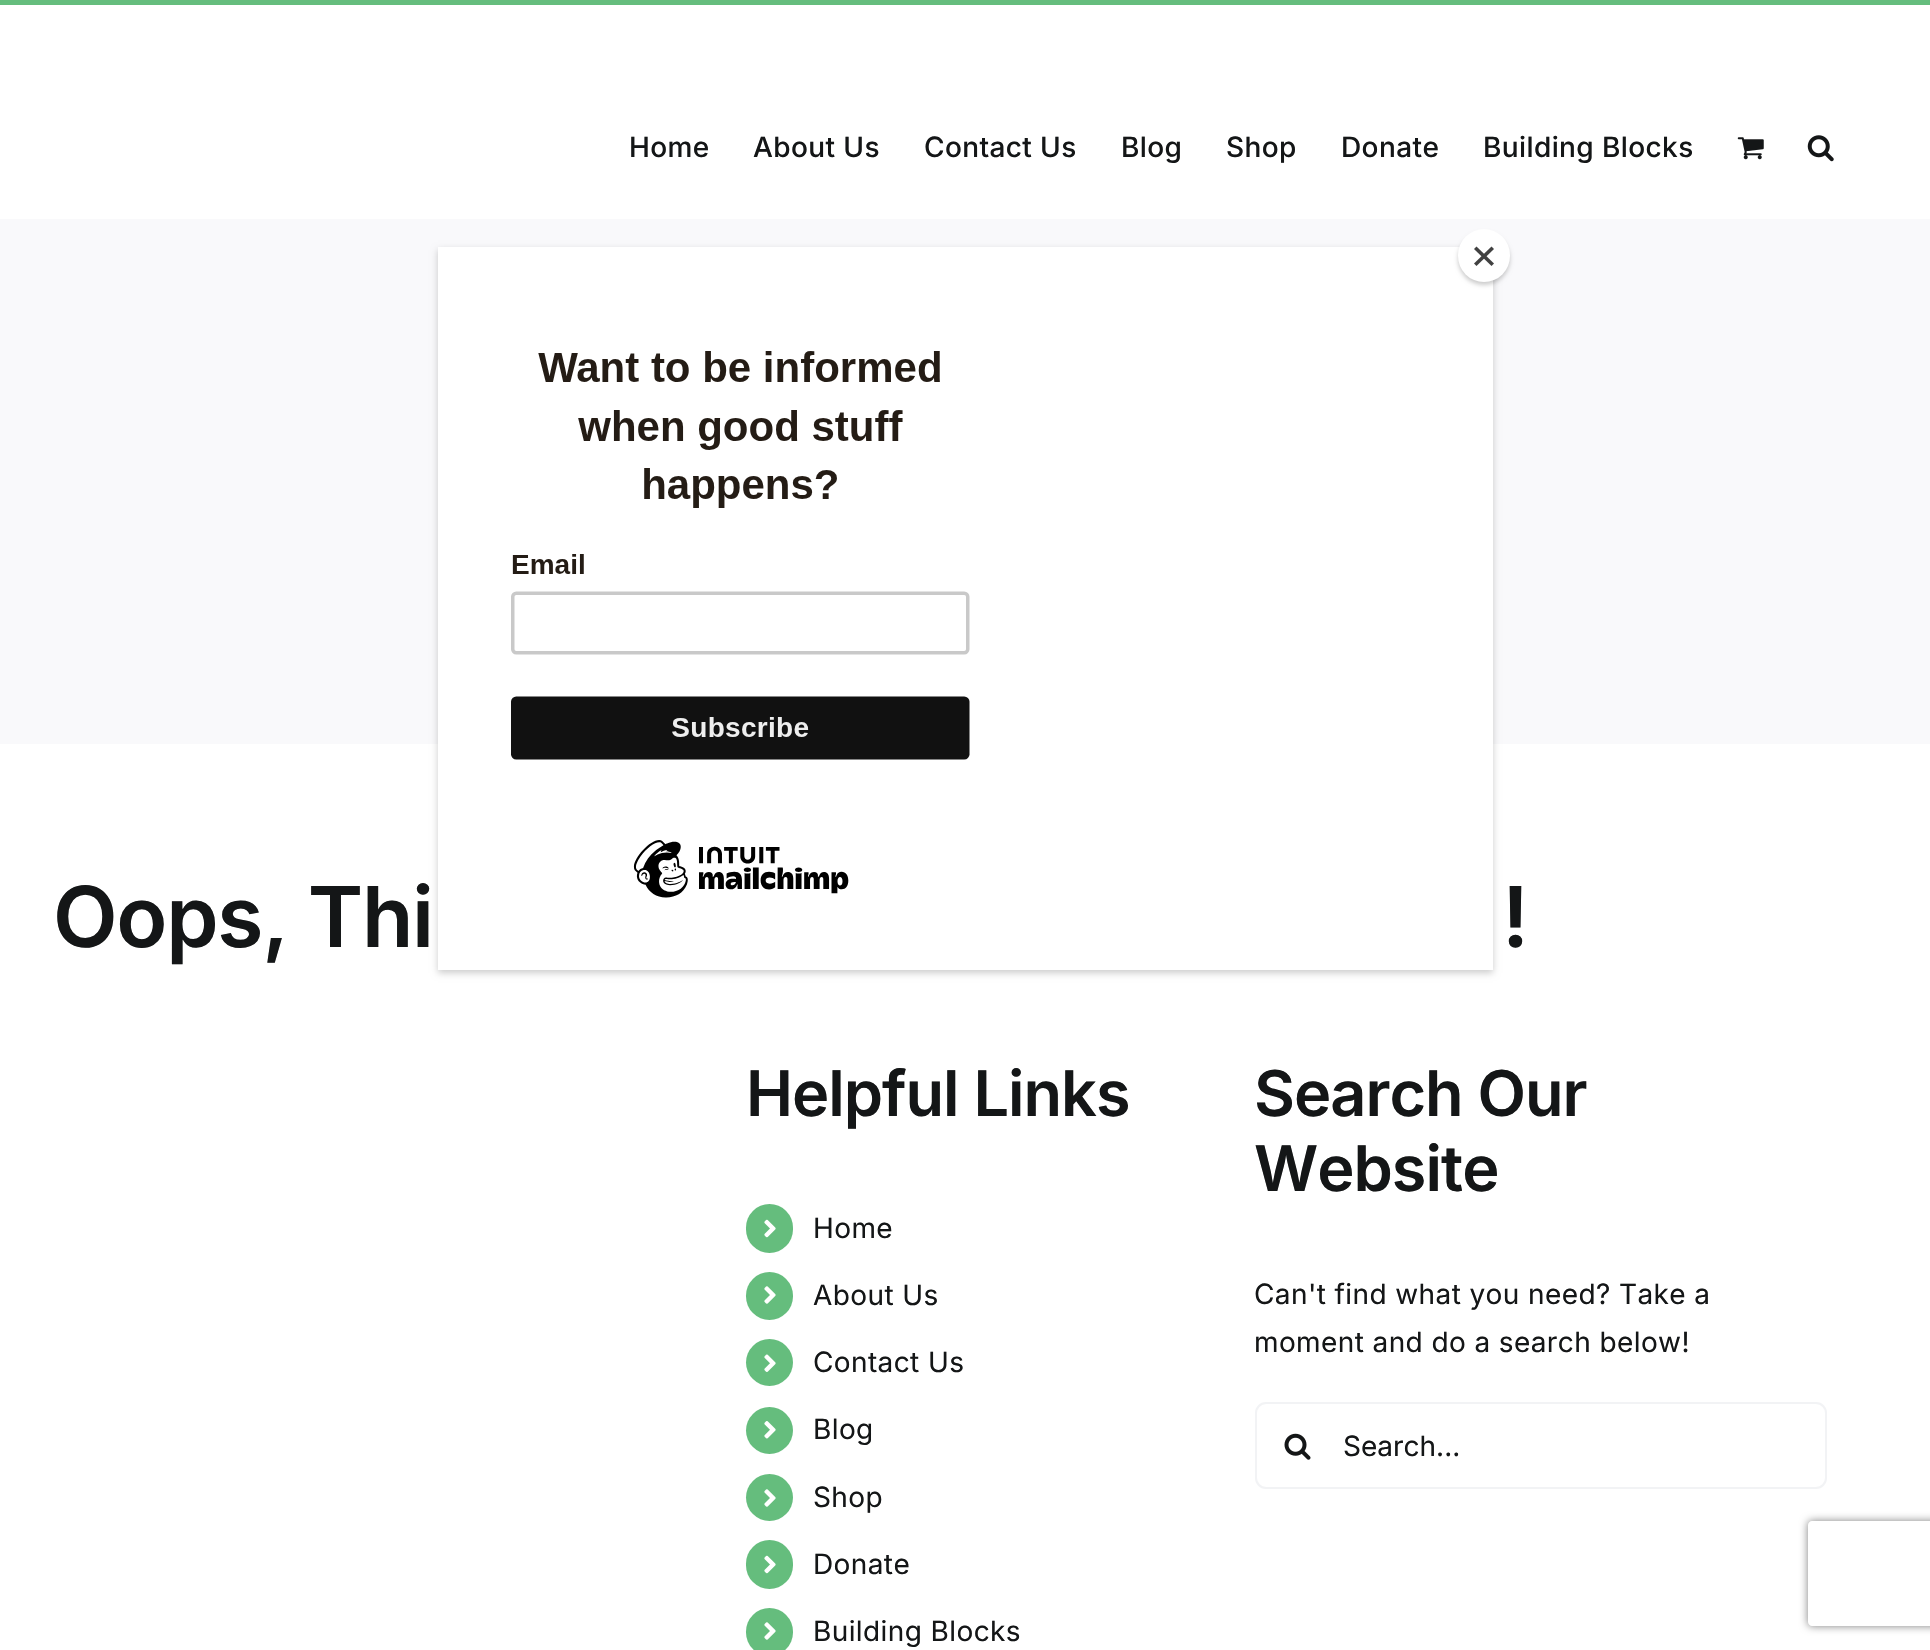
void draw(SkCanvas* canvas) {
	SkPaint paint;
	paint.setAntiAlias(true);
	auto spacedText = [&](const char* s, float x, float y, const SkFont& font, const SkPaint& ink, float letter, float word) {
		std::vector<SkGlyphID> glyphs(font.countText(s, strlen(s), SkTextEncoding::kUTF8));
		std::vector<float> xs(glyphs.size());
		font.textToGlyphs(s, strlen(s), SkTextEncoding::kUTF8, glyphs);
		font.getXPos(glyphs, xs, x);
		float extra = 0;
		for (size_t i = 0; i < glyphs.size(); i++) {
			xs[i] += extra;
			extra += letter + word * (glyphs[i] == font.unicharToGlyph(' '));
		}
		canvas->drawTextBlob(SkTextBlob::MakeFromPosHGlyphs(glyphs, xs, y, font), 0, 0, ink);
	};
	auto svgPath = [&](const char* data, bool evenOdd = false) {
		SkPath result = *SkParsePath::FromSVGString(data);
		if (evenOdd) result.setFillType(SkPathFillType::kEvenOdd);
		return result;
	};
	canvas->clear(0xfff9f9fb);
	paint.setColor(0xffffffff);
	canvas->drawRect(SkRect::MakeXYWH(0, 5, 1930, 214), paint);
	paint.setColor(0xff65bd7d);
	canvas->drawRect(SkRect::MakeXYWH(0, 0, 1930, 5), paint);
	SkFont f1(fontMgr->matchFamilyStyle("Inter", SkFontStyle(500, SkFontStyle::kNormal_Width, SkFontStyle::kUpright_Slant)), 28);
	f1.setSubpixel(true);
	paint.setColor(0xff141617);
	spacedText("Home", 629, 157, f1, paint, 0.4, 0);
	spacedText("About Us", 753, 157, f1, paint, 0.4, 0);
	spacedText("Contact Us", 924, 157, f1, paint, 0.4, 0);
	spacedText("Blog", 1121, 157, f1, paint, 0.4, 0);
	spacedText("Shop", 1226, 157, f1, paint, 0.4, 0);
	spacedText("Donate", 1341, 157, f1, paint, 0.4, 0);
	spacedText("Building Blocks", 1483, 157, f1, paint, 0.4, 0);
	canvas->drawImageRect(SkImages::DeferredFromEncodedData(SkData::MakeFromFileName("img1.png")), SkRect::MakeXYWH(1737, 137, 27, 23), SkSamplingOptions());
	canvas->drawImageRect(SkImages::DeferredFromEncodedData(SkData::MakeFromFileName("img2.png")), SkRect::MakeXYWH(1807, 135, 27, 27), SkSamplingOptions());
	paint.setColor(0xffffffff);
	canvas->drawRect(SkRect::MakeXYWH(0, 744, 1930, 906), paint);
	SkFont f2(fontMgr->matchFamilyStyle("Inter", SkFontStyle(600, SkFontStyle::kNormal_Width, SkFontStyle::kUpright_Slant)), 84);
	f2.setSubpixel(true);
	paint.setColor(0xff141617);
	spacedText("Oops, Thi", 53, 947, f2, paint, -1.25, 0);
	spacedText("!", 1502, 947, f2, paint, -1.25, 0);
	SkFont f3(fontMgr->matchFamilyStyle("Inter", SkFontStyle(600, SkFontStyle::kNormal_Width, SkFontStyle::kUpright_Slant)), 63);
	f3.setSubpixel(true);
	spacedText("Helpful Links", 746, 1116, f3, paint, -1, 0);
	paint.setColor(0xff65bd7d);
	canvas->drawRoundRect(SkRect::MakeXYWH(746, 1204, 47, 49), 23.5, 23.5, paint);
	canvas->drawImageRect(SkImages::DeferredFromEncodedData(SkData::MakeFromFileName("img3.png")), SkRect::MakeXYWH(764, 1219, 12, 19), SkSamplingOptions());
	SkFont f4(fontMgr->matchFamilyStyle("Inter", SkFontStyle::Normal()), 28);
	f4.setSubpixel(true);
	paint.setColor(0xff141617);
	spacedText("Home", 813, 1238, f4, paint, 0.4, 0);
	paint.setColor(0xff65bd7d);
	canvas->drawRoundRect(SkRect::MakeXYWH(746, 1272, 47, 48), 23.5, 23.5, paint);
	canvas->drawImageRect(SkImages::DeferredFromEncodedData(SkData::MakeFromFileName("img4.png")), SkRect::MakeXYWH(764, 1286, 12, 18), SkSamplingOptions());
	paint.setColor(0xff141617);
	spacedText("About Us", 813, 1305, f4, paint, 0.4, 0);
	paint.setColor(0xff65bd7d);
	canvas->drawCircle(769.5, 1362.5, 23.5, paint);
	canvas->drawImageRect(SkImages::DeferredFromEncodedData(SkData::MakeFromFileName("img5.png")), SkRect::MakeXYWH(764, 1354, 12, 18), SkSamplingOptions());
	paint.setColor(0xff141617);
	spacedText("Contact Us", 813, 1372, f4, paint, 0.4, 0);
	paint.setColor(0xff65bd7d);
	canvas->drawCircle(769.5, 1430.5, 23.5, paint);
	canvas->drawImageRect(SkImages::DeferredFromEncodedData(SkData::MakeFromFileName("img6.png")), SkRect::MakeXYWH(764, 1421, 12, 18), SkSamplingOptions());
	paint.setColor(0xff141617);
	spacedText("Blog", 813, 1439, f4, paint, 0.4, 0);
	paint.setColor(0xff65bd7d);
	canvas->drawCircle(769.5, 1497.5, 23.5, paint);
	canvas->drawImageRect(SkImages::DeferredFromEncodedData(SkData::MakeFromFileName("img4.png")), SkRect::MakeXYWH(764, 1489, 12, 18), SkSamplingOptions());
	paint.setColor(0xff141617);
	spacedText("Shop", 813, 1507, f4, paint, 0.4, 0);
	paint.setColor(0xff65bd7d);
	canvas->drawRoundRect(SkRect::MakeXYWH(746, 1540, 47, 49), 23.5, 23.5, paint);
	canvas->drawImageRect(SkImages::DeferredFromEncodedData(SkData::MakeFromFileName("img3.png")), SkRect::MakeXYWH(764, 1555, 12, 19), SkSamplingOptions());
	paint.setColor(0xff141617);
	spacedText("Donate", 813, 1574, f4, paint, 0.4, 0);
	paint.setColor(0xff65bd7d);
	canvas->drawRoundRect(SkRect::MakeXYWH(746, 1608, 47, 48), 23.5, 23.5, paint);
	canvas->drawImageRect(SkImages::DeferredFromEncodedData(SkData::MakeFromFileName("img4.png")), SkRect::MakeXYWH(764, 1622, 12, 18), SkSamplingOptions());
	paint.setColor(0xff141617);
	spacedText("Building Blocks", 813, 1641, f4, paint, 0.4, 0);
	spacedText("Search Our", 1254, 1116, f3, paint, -1, 0);
	spacedText("Website", 1254, 1191, f3, paint, -1, 0);
	spacedText("Can't find what you need? Take a", 1254, 1304, f4, paint, 0.4, 0);
	spacedText("moment and do a search below!", 1254, 1352, f4, paint, 0.4, 0);
	paint.setStroke(true);
	paint.setStrokeWidth(2);
	paint.setColor(0xfff2f3f5);
	canvas->drawRoundRect(SkRect::MakeXYWH(1256, 1403, 570, 85), 10, 10, paint);
	canvas->drawImageRect(SkImages::DeferredFromEncodedData(SkData::MakeFromFileName("img7.png")), SkRect::MakeXYWH(1284, 1433, 27, 27), SkSamplingOptions());
	paint.setStroke(false);
	paint.setColor(0xff141617);
	canvas->drawString("Search...", 1343, 1456, f4, paint);
	paint.setColor(0x33000000);
	paint.setMaskFilter(SkMaskFilter::MakeBlur(kNormal_SkBlurStyle, 3.5));
	canvas->drawRect(SkRect::MakeXYWH(438, 250, 1055, 723), paint);
	paint.setMaskFilter(nullptr);
	canvas->drawImageRect(SkImages::DeferredFromEncodedData(SkData::MakeFromFileName("img8.png")), SkRect::MakeXYWH(438, 247, 1055, 723), SkSamplingOptions());
	paint.setMaskFilter(SkMaskFilter::MakeBlur(kNormal_SkBlurStyle, 2));
	canvas->drawRoundRect(SkRect::MakeXYWH(1458, 233, 52, 52), 26, 26, paint);
	paint.setMaskFilter(nullptr);
	paint.setColor(0xffffffff);
	canvas->drawRoundRect(SkRect::MakeXYWH(1458, 229, 52, 53), 26, 26, paint);
	paint.setColor(0xff414141);
	canvas->drawPath(svgPath("M1491.5 246.5L1494 249L1476.5 266L1474 263.5Z"), paint);
	canvas->drawPath(svgPath("M1474 249L1476.5 246.5L1494 263.5L1491.5 266Z"), paint);
	canvas->save();
	canvas->clipPath(svgPath("M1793 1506H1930V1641H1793ZM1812 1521H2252C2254 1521 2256 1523 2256 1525V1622C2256 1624 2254 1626 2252 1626H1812C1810 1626 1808 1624 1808 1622V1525C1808 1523 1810 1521 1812 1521Z", true), true);
	paint.setColor(0xff808080);
	paint.setMaskFilter(SkMaskFilter::MakeBlur(kNormal_SkBlurStyle, 4.5));
	canvas->drawRoundRect(SkRect::MakeXYWH(1808, 1521, 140, 105), 4, 4, paint);
	paint.setMaskFilter(nullptr);
	canvas->restore();
}
